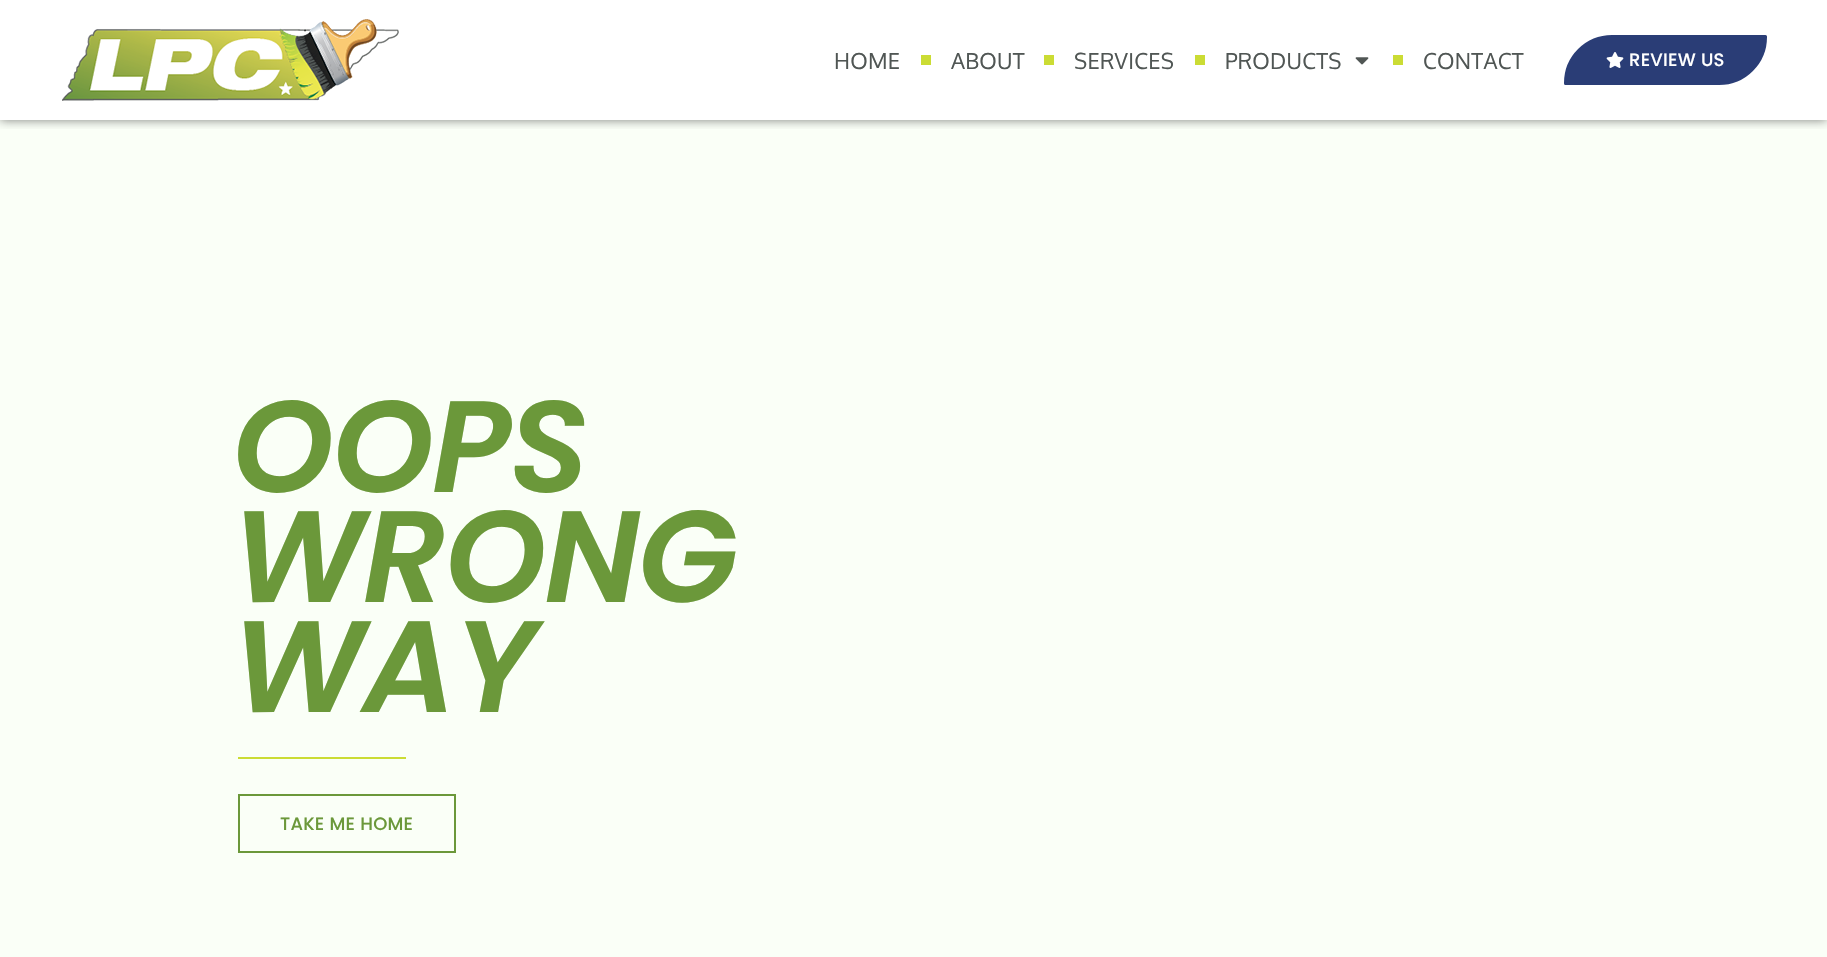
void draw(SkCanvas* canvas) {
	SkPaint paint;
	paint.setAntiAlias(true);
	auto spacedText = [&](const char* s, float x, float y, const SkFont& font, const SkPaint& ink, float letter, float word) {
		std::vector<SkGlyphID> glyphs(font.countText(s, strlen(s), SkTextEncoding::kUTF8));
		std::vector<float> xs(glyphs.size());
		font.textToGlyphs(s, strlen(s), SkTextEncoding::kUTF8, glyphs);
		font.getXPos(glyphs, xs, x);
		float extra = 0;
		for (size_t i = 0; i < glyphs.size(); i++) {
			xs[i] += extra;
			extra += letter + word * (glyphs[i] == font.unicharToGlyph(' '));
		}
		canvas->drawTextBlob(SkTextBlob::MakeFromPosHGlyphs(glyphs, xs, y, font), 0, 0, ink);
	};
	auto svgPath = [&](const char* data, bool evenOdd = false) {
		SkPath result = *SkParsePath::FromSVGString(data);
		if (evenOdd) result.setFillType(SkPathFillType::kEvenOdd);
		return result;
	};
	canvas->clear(0xffffffff);
	paint.setColor(0xfffafff7);
	canvas->drawRect(SkRect::MakeXYWH(0, 120, 1827, 837), paint);
	canvas->save();
	canvas->clipRect(SkRect::MakeXYWH(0, 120, 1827, 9));
	paint.setColor(0x80000000);
	paint.setMaskFilter(SkMaskFilter::MakeBlur(kNormal_SkBlurStyle, 5));
	canvas->drawRect(SkRect::MakeXYWH(0, 0, 1827, 120), paint);
	paint.setMaskFilter(nullptr);
	canvas->restore();
	canvas->drawImageRect(SkImages::DeferredFromEncodedData(SkData::MakeFromFileName("img1.png")), SkRect::MakeXYWH(62, 19, 337, 82), SkSamplingOptions());
	SkFont f1(fontMgr->matchFamilyStyle("Oxygen", SkFontStyle::Normal()), 22);
	f1.setSubpixel(true);
	paint.setColor(0xff505654);
	spacedText("HOME", 834, 69, f1, paint, 0.25, 0);
	paint.setColor(0xffcbdc34);
	canvas->drawRect(SkRect::MakeXYWH(921, 55, 10, 10), paint);
	paint.setColor(0xff505654);
	spacedText("ABOUT", 951, 69, f1, paint, 0.25, 0);
	paint.setColor(0xffcbdc34);
	canvas->drawRect(SkRect::MakeXYWH(1044, 55, 10, 10), paint);
	paint.setColor(0xff505654);
	spacedText("SERVICES", 1074, 69, f1, paint, 0.25, 0);
	paint.setColor(0xffcbdc34);
	canvas->drawRect(SkRect::MakeXYWH(1195, 55, 10, 10), paint);
	paint.setColor(0xff505654);
	spacedText("PRODUCTS", 1225, 69, f1, paint, 0.25, 0);
	canvas->drawImageRect(SkImages::DeferredFromEncodedData(SkData::MakeFromFileName("img2.png")), SkRect::MakeXYWH(1355, 57, 14, 8), SkSamplingOptions());
	paint.setColor(0xffcbdc34);
	canvas->drawRect(SkRect::MakeXYWH(1393, 55, 10, 10), paint);
	paint.setColor(0xff505654);
	spacedText("CONTACT", 1423, 69, f1, paint, 0.25, 0);
	paint.setColor(0xff2a3d76);
	canvas->drawPath(svgPath("M1612 36H1765.5C1766 36 1766 36 1766 36.5V37C1766 63 1745 84 1719 84H1565.5C1565 84 1565 84 1565 83.5V83C1565 57 1586 36 1612 36Z"), paint);
	paint.setStroke(true);
	paint.setStrokeWidth(2);
	canvas->drawPath(svgPath("M1612 36H1765.5C1766 36 1766 36 1766 36.5V37C1766 63 1745 84 1719 84H1565.5C1565 84 1565 84 1565 83.5V83C1565 57 1586 36 1612 36Z"), paint);
	canvas->drawImageRect(SkImages::DeferredFromEncodedData(SkData::MakeFromFileName("img3.png")), SkRect::MakeXYWH(1606, 52, 18, 16), SkSamplingOptions());
	SkFont f2(fontMgr->matchFamilyStyle("Poppins", SkFontStyle(500, SkFontStyle::kNormal_Width, SkFontStyle::kUpright_Slant)), 18);
	f2.setSubpixel(true);
	paint.setStroke(false);
	paint.setColor(0xffffffff);
	spacedText("REVIEW US", 1629, 66, f2, paint, 0.25, 0);
	SkFont f3(fontMgr->matchFamilyStyle("Poppins", SkFontStyle(600, SkFontStyle::kNormal_Width, SkFontStyle::kItalic_Slant)), 130);
	f3.setSubpixel(true);
	paint.setColor(0xff6b983a);
	spacedText("OOPS", 232, 492, f3, paint, -2, 0);
	spacedText("WRONG", 232, 602, f3, paint, -2, 0);
	spacedText("WAY", 232, 712, f3, paint, -2, 0);
	paint.setColor(0xffcbdc34);
	canvas->drawRect(SkRect::MakeXYWH(238, 757, 168, 2), paint);
	paint.setStroke(true);
	paint.setColor(0xff6b983a);
	canvas->drawRect(SkRect::MakeXYWH(239, 795, 216, 57), paint);
	paint.setStroke(false);
	spacedText("TAKE ME HOME", 280, 830, f2, paint, 0.25, 0);
}
